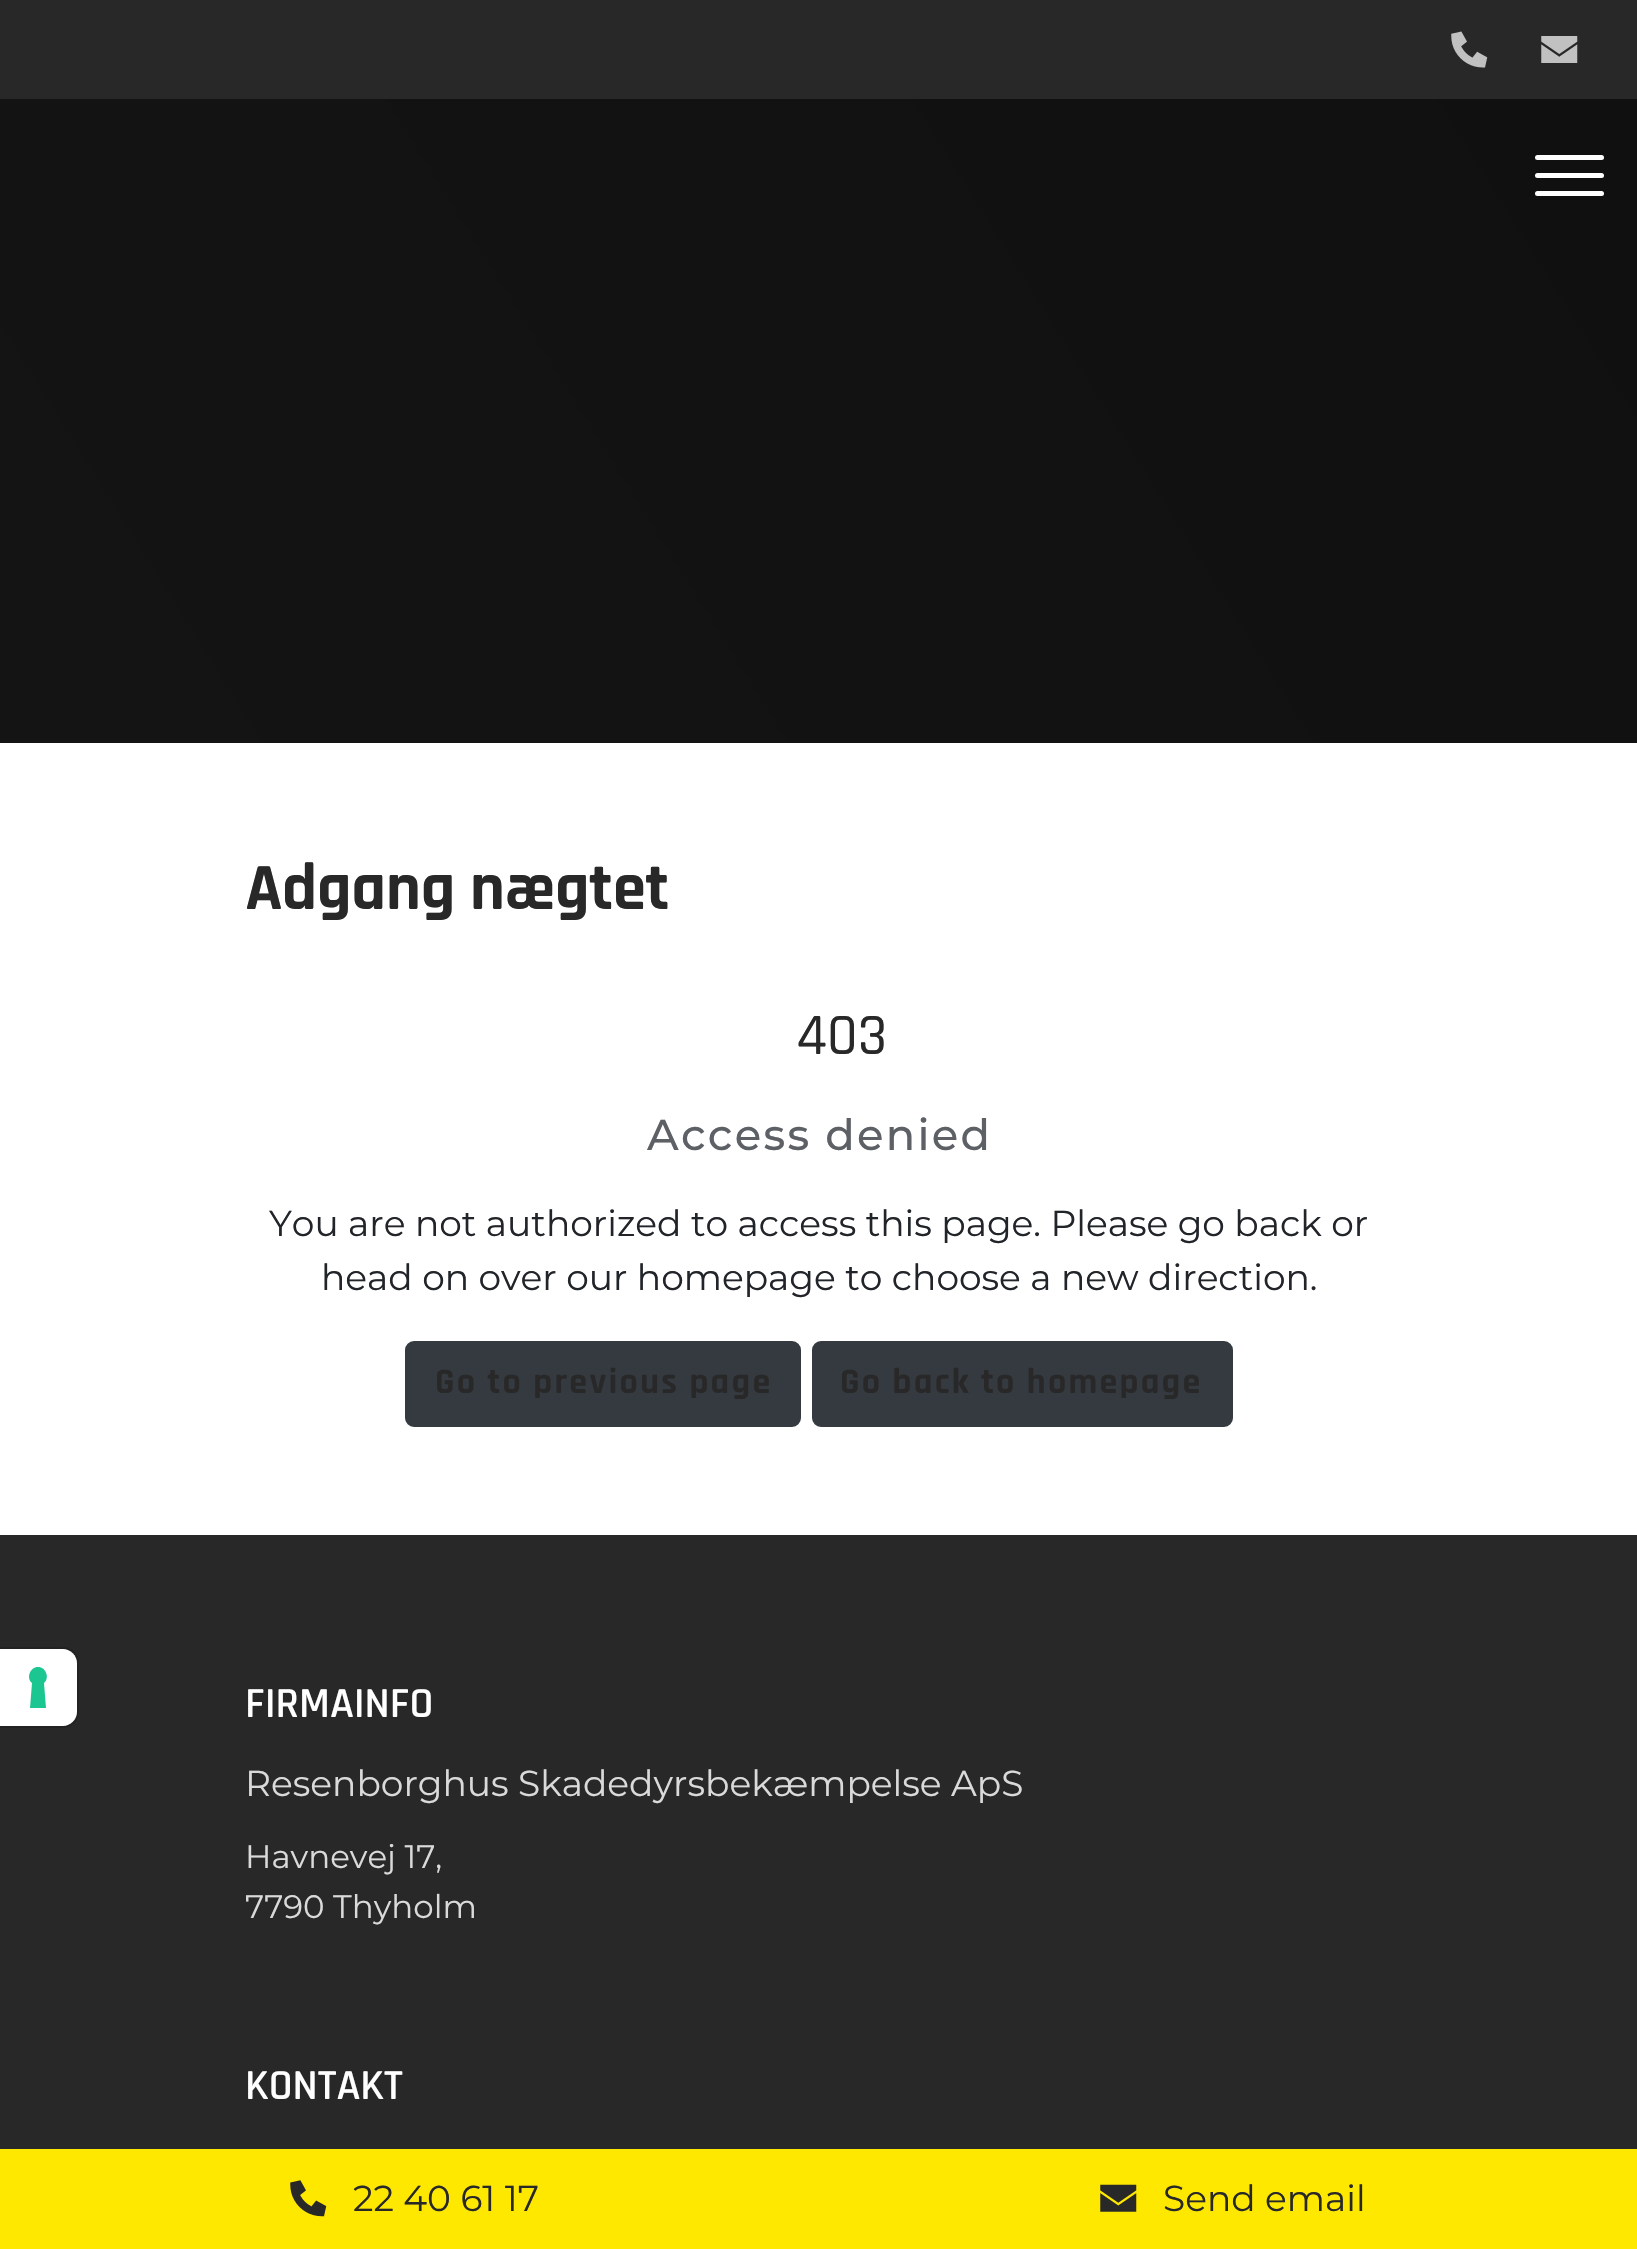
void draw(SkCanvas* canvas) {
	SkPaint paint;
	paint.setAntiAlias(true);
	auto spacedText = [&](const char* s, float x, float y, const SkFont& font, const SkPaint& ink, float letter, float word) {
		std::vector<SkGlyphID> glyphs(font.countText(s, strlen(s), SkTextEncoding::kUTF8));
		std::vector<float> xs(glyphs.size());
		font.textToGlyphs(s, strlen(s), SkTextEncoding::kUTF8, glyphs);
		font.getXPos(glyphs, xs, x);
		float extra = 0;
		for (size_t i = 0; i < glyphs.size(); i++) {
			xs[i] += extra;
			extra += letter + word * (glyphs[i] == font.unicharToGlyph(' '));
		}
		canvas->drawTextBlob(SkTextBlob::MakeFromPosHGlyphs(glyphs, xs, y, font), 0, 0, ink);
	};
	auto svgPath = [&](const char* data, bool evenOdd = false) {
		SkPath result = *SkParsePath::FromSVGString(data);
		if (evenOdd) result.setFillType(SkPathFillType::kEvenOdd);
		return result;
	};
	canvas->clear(0xffffffff);
	paint.setColor(0xff282828);
	canvas->drawRect(SkRect::MakeXYWH(0, 1535, 1637, 614), paint);
	paint.setStroke(true);
	paint.setStrokeWidth(2);
	paint.setColor(0xff222222);
	canvas->drawPath(svgPath("M-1 1648H63C71.5 1648 78 1654.5 78 1663V1712C78 1720.5 71.5 1727 63 1727H-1Z"), paint);
	paint.setStroke(false);
	paint.setColor(0xffffffff);
	canvas->drawPath(svgPath("M0 1649H63C70.5 1649 77 1655.5 77 1663V1712C77 1719.5 70.5 1726 63 1726H0Z"), paint);
	paint.setColor(0xff1cc691);
	canvas->drawPath(svgPath("M38 1667C46 1667 50 1678 44 1683L46 1708H30L32 1683C26 1678 30 1667 38 1667Z", true), paint);
	paint.setColor(0xff282828);
	canvas->drawRect(SkRect::MakeXYWH(0, 0, 1637, 99), paint);
	canvas->drawImageRect(SkImages::DeferredFromEncodedData(SkData::MakeFromFileName("img1.png")), SkRect::MakeXYWH(1451, 31, 37, 37), SkSamplingOptions());
	canvas->drawImageRect(SkImages::DeferredFromEncodedData(SkData::MakeFromFileName("img2.png")), SkRect::MakeXYWH(1541, 36, 37, 27), SkSamplingOptions());
	{
		const SkColor colors[] = {0xff101010, 0xff141414};
		const float stops[] = {0, 1};
		const SkPoint ends[] = {{1575, -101}, {63, 844}};
		paint.setShader(SkGradientShader::MakeLinear(ends, colors, stops, 2, SkTileMode::kClamp));
		paint.setAlpha(255);
	}
	canvas->drawRect(SkRect::MakeXYWH(0, 99, 1637, 644), paint);
	paint.setShader(nullptr);
	paint.setColor(0xffffffff);
	canvas->drawRoundRect(SkRect::MakeXYWH(1535, 173, 69, 5), 2.5, 2.5, paint);
	canvas->drawRoundRect(SkRect::MakeXYWH(1535, 155, 69, 5), 2.5, 2.5, paint);
	canvas->drawRoundRect(SkRect::MakeXYWH(1535, 191, 69, 5), 2.5, 2.5, paint);
	SkFont f1(fontMgr->matchFamilyStyle("Rajdhani", SkFontStyle::Bold()), 66.5);
	f1.setSubpixel(true);
	paint.setColor(0xff282828);
	canvas->drawString("Adgang nægtet", 245, 909, f1, paint);
	SkFont f2(fontMgr->matchFamilyStyle("Rajdhani", SkFontStyle(500, SkFontStyle::kNormal_Width, SkFontStyle::kUpright_Slant)), 59);
	f2.setSubpixel(true);
	canvas->drawString("403", 796, 1054, f2, paint);
	SkFont f3(fontMgr->matchFamilyStyle("Montserrat", SkFontStyle(500, SkFontStyle::kNormal_Width, SkFontStyle::kUpright_Slant)), 43.25);
	f3.setSubpixel(true);
	paint.setColor(0xff5d6166);
	spacedText("Access denied", 647, 1150, f3, paint, 2.25, 0);
	SkFont f4(fontMgr->matchFamilyStyle("Montserrat", SkFontStyle::Normal()), 36);
	f4.setSubpixel(true);
	paint.setColor(0xff212429);
	canvas->drawString("You are not authorized to access this page. Please go back or", 269, 1236, f4, paint);
	canvas->drawString("head on over our homepage to choose a new direction.", 321, 1290, f4, paint);
	paint.setColor(0xff343a40);
	canvas->drawRoundRect(SkRect::MakeXYWH(406, 1342, 394, 84), 8, 8, paint);
	paint.setStroke(true);
	canvas->drawRoundRect(SkRect::MakeXYWH(406, 1342, 394, 84), 8, 8, paint);
	SkFont f5(fontMgr->matchFamilyStyle("Rajdhani", SkFontStyle::Bold()), 36);
	f5.setSubpixel(true);
	paint.setStroke(false);
	paint.setColor(0xff282828);
	spacedText("Go to previous page", 435, 1393, f5, paint, 2.25, 0);
	paint.setColor(0xff343a40);
	canvas->drawRoundRect(SkRect::MakeXYWH(813, 1342, 419, 84), 8, 8, paint);
	paint.setStroke(true);
	canvas->drawRoundRect(SkRect::MakeXYWH(813, 1342, 419, 84), 8, 8, paint);
	paint.setStroke(false);
	paint.setColor(0xff282828);
	spacedText("Go back to homepage", 840, 1393, f5, paint, 2.25, 0);
	SkFont f6(fontMgr->matchFamilyStyle("Rajdhani", SkFontStyle(600, SkFontStyle::kNormal_Width, SkFontStyle::kUpright_Slant)), 43.25);
	f6.setSubpixel(true);
	paint.setColor(0xffffffff);
	canvas->drawString("FIRMAINFO", 245, 1717, f6, paint);
	paint.setColor(0xffdadada);
	canvas->drawString("Resenborghus Skadedyrsbekæmpelse ApS", 245, 1796, f4, paint);
	SkFont f7(fontMgr->matchFamilyStyle("Montserrat", SkFontStyle::Normal()), 32.5);
	f7.setSubpixel(true);
	canvas->drawString("Havnevej 17,", 245, 1868, f7, paint);
	canvas->drawString("7790 Thyholm", 245, 1918, f7, paint);
	paint.setColor(0xffffffff);
	canvas->drawString("KONTAKT", 245, 2099, f6, paint);
	paint.setColor(0xffffe800);
	canvas->drawRect(SkRect::MakeXYWH(0, 2149, 1637, 100), paint);
	canvas->drawImageRect(SkImages::DeferredFromEncodedData(SkData::MakeFromFileName("img3.png")), SkRect::MakeXYWH(290, 2180, 37, 37), SkSamplingOptions());
	paint.setColor(0xff282828);
	canvas->drawString("22 40 61 17", 353, 2211, f4, paint);
	canvas->drawImageRect(SkImages::DeferredFromEncodedData(SkData::MakeFromFileName("img4.png")), SkRect::MakeXYWH(1100, 2184, 37, 28), SkSamplingOptions());
	canvas->drawString("Send email", 1163, 2211, f4, paint);
}
